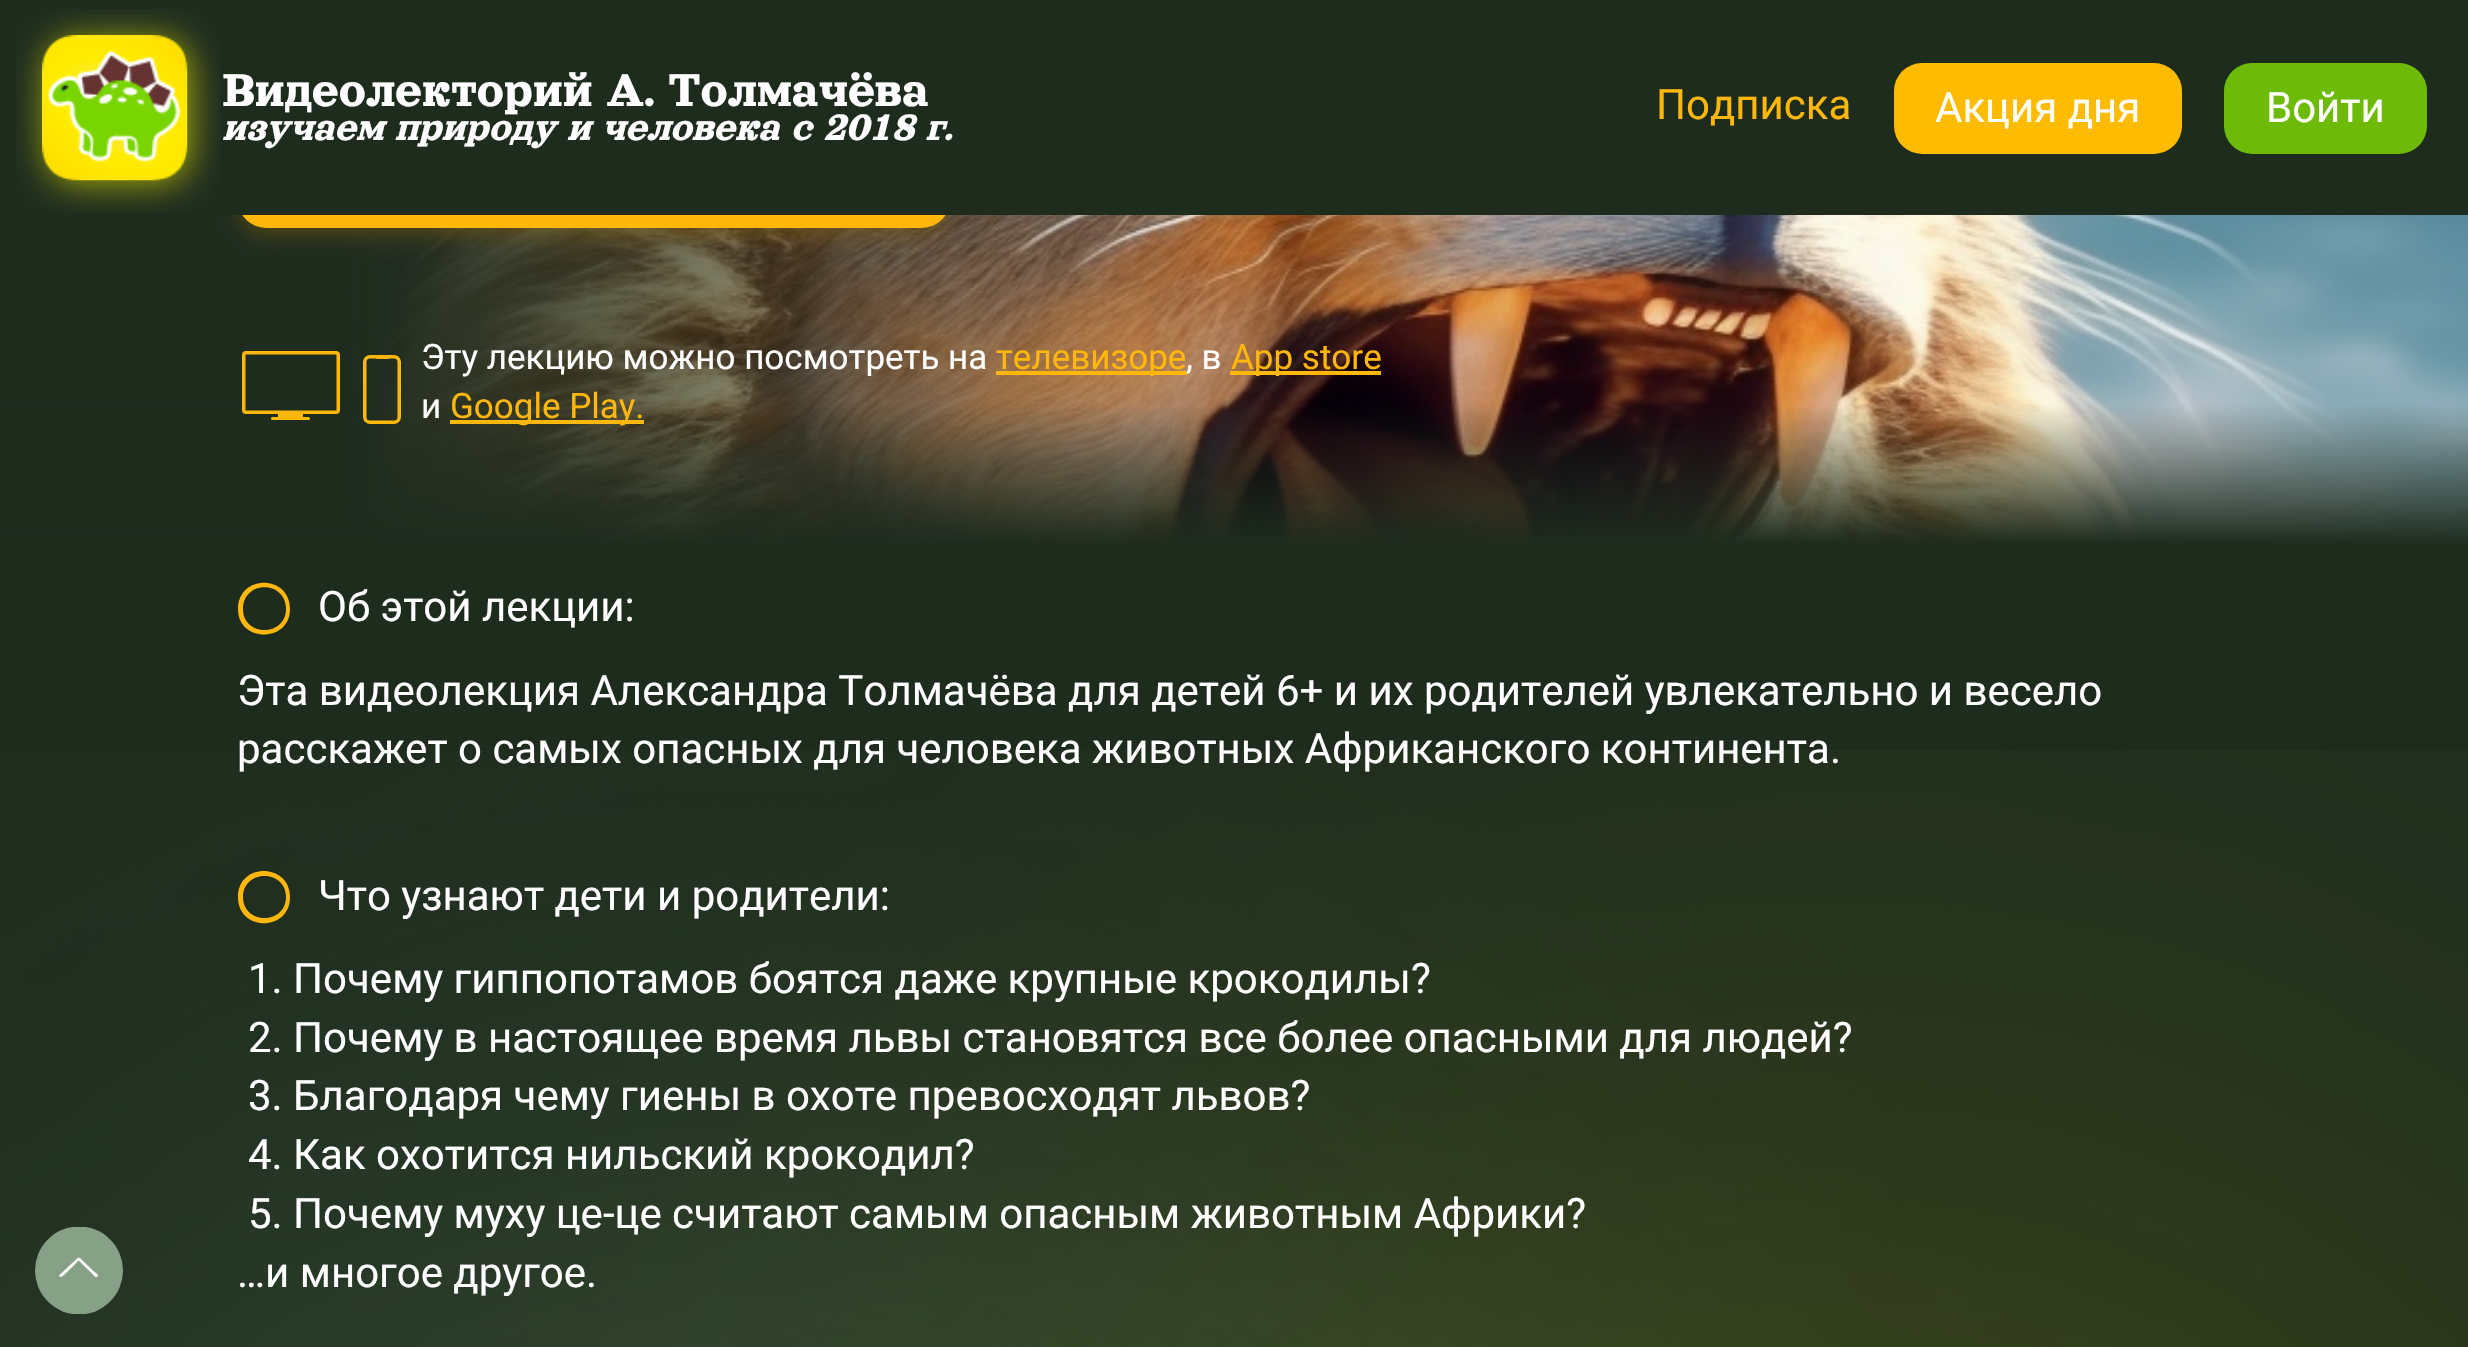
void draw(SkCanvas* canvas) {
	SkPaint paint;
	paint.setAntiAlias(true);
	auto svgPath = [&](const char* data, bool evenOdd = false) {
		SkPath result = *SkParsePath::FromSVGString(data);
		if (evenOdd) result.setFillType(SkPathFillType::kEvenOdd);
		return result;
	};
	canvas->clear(0xffffffff);
	canvas->drawImageRect(SkImages::DeferredFromEncodedData(SkData::MakeFromFileName("img2.png")), SkRect::MakeXYWH(0, 215, 2468, 364), SkSamplingOptions());
	paint.setColor(0x80815e0c);
	paint.setMaskFilter(SkMaskFilter::MakeBlur(kNormal_SkBlurStyle, 10.5));
	canvas->drawRoundRect(SkRect::MakeXYWH(238, 130, 712, 105), 28, 28, paint);
	paint.setMaskFilter(nullptr);
	paint.setColor(0xffffb70c);
	canvas->drawRoundRect(SkRect::MakeXYWH(238, 123, 712, 105), 28, 28, paint);
	paint.setColor(0xff1e2c1e);
	canvas->drawRect(SkRect::MakeXYWH(0, 0, 2468, 215), paint);
	canvas->drawImageRect(SkImages::DeferredFromEncodedData(SkData::MakeFromFileName("img1.png")), SkRect::MakeXYWH(16, 9, 204, 204), SkSamplingOptions());
	SkFont f1(fontMgr->matchFamilyStyle("Orelega One", SkFontStyle::Normal()), 52.5);
	f1.setSubpixel(true);
	paint.setColor(0xffffffff);
	canvas->drawString("Видеолекторий А. Толмачёва", 222, 106, f1, paint);
	SkFont f2(fontMgr->matchFamilyStyle("Roboto", SkFontStyle::Normal()), 42);
	f2.setSubpixel(true);
	paint.setColor(0xffffb70c);
	canvas->drawString("Подписка", 1656, 119, f2, paint);
	SkFont f3(fontMgr->matchFamilyStyle("Orelega One", SkFontStyle::Italic()), 42);
	f3.setSubpixel(true);
	paint.setColor(0xffffffff);
	canvas->drawString("изучаем природу и человека с 2018 г.", 222, 140, f3, paint);
	paint.setColor(0xffffbb00);
	canvas->drawRoundRect(SkRect::MakeXYWH(1894, 63, 288, 91), 28, 28, paint);
	paint.setColor(0xffffffff);
	canvas->drawString("Акция дня", 1935, 122, f2, paint);
	paint.setColor(0xff6dba08);
	canvas->drawRoundRect(SkRect::MakeXYWH(2224, 63, 203, 91), 28, 28, paint);
	paint.setColor(0xffffffff);
	canvas->drawString("Войти", 2266, 122, f2, paint);
	paint.setStroke(true);
	paint.setStrokeWidth(3.5);
	paint.setColor(0xffffb70c);
	canvas->drawRoundRect(SkRect::MakeXYWH(243.75, 352.75, 94.5, 59.5), 2.25, 2.25, paint);
	paint.setStroke(false);
	canvas->drawRect(SkRect::MakeXYWH(278, 414, 25, 3), paint);
	canvas->drawRoundRect(SkRect::MakeXYWH(271, 417, 39, 3), 1.5, 1.5, paint);
	paint.setStroke(true);
	canvas->drawRoundRect(SkRect::MakeXYWH(364.75, 356.75, 34.5, 65.5), 5.25, 5.25, paint);
	paint.setStroke(false);
	canvas->drawRoundRect(SkRect::MakeXYWH(376, 356, 13, 3), 1.5, 1.5, paint);
	SkFont f4(fontMgr->matchFamilyStyle("Roboto", SkFontStyle::Normal()), 35);
	f4.setSubpixel(true);
	paint.setColor(0xffffffff);
	canvas->drawString("Эту лекцию можно посмотреть на", 421, 369, f4, paint);
	paint.setColor(0xffffb70c);
	canvas->drawRect(SkRect::MakeXYWH(996, 371, 191, 4), paint);
	canvas->drawString("телевизоре", 996, 369, f4, paint);
	paint.setColor(0xffffffff);
	canvas->drawString(", в", 1186, 369, f4, paint);
	paint.setColor(0xffffb70c);
	canvas->drawRect(SkRect::MakeXYWH(1230, 371, 151, 4), paint);
	canvas->drawString("App store", 1231, 369, f4, paint);
	paint.setColor(0xffffffff);
	canvas->drawString("и", 421, 418, f4, paint);
	paint.setColor(0xffffb70c);
	canvas->drawRect(SkRect::MakeXYWH(450, 420, 194, 4), paint);
	canvas->drawString("Google Play.", 450, 418, f4, paint);
	paint.setColor(0xff1e2c1e);
	canvas->drawRect(SkRect::MakeXYWH(0, 579, 2468, 768), paint);
	canvas->drawImageRect(SkImages::DeferredFromEncodedData(SkData::MakeFromFileName("img3.png")), SkRect::MakeXYWH(0, 750, 2468, 597), SkSamplingOptions());
	canvas->save();
	canvas->clipRect(SkRect::MakeXYWH(35, 1227, 88, 87));
	paint.setColor(0xff87a186);
	canvas->drawCircle(79, 1270.5, 44, paint);
	canvas->restore();
	paint.setColor(0xffffffff);
	canvas->drawPath(svgPath("M98 1275.5L97 1277C95.5 1278 93 1274.5 92.5 1274L78.5 1260.5C76.5 1263 62.5 1277 61 1277C60 1277 59 1276 59.5 1275L77.5 1258C79.5 1256 82 1260 82.5 1260.5L94.5 1272C95.5 1273 98 1274 98 1275.5Z"), paint);
	paint.setColor(0xffffb70c);
	canvas->drawPath(svgPath("M286 609C286 580 243 580 243 609C243 637 286 637 286 609ZM238 609C238 574 290 574 290 609C290 643 238 643 238 609Z"), paint);
	paint.setColor(0xffffffff);
	canvas->drawString("Об этой лекции:", 318, 621, f2, paint);
	canvas->drawString("Эта видеолекция Александра Толмачёва для детей 6+ и их родителей увлекательно и весело", 237, 705, f2, paint);
	canvas->drawString("расскажет о самых опасных для человека животных Африканского континента.", 237, 763, f2, paint);
	paint.setColor(0xffffb70c);
	canvas->drawPath(svgPath("M286 897C286 869 243 869 243 897C243 925 286 925 286 897ZM238 897C238 862 290 863 290 897C290 932 238 932 238 897Z"), paint);
	paint.setColor(0xffffffff);
	canvas->drawString("Что узнают дети и родители:", 318, 910, f2, paint);
	canvas->drawString("1. Почему гиппопотамов боятся даже крупные крокодилы?", 248, 993, f2, paint);
	canvas->drawString("2. Почему в настоящее время львы становятся все более опасными для людей?", 248, 1052, f2, paint);
	canvas->drawString("3. Благодаря чему гиены в охоте превосходят львов?", 248, 1110, f2, paint);
	canvas->drawString("4. Как охотится нильский крокодил?", 248, 1169, f2, paint);
	canvas->drawString("5. Почему муху це-це считают самым опасным животным Африки?", 248, 1228, f2, paint);
	canvas->drawString("…и многое другое.", 237, 1287, f2, paint);
}
